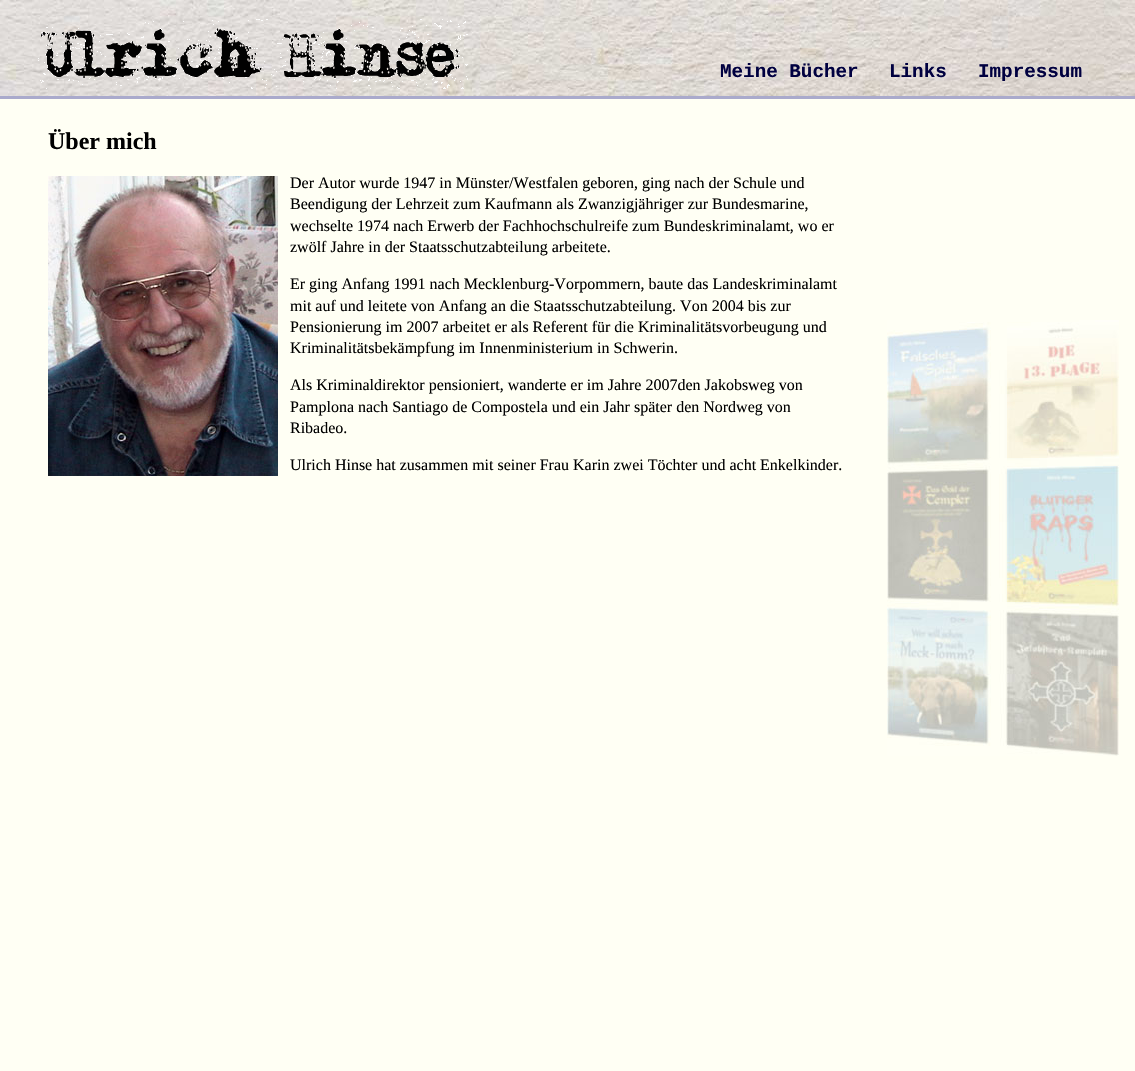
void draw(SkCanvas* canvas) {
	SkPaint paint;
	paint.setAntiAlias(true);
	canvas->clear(0xfffffff4);
	canvas->drawImageRect(SkImages::DeferredFromEncodedData(SkData::MakeFromFileName("img1.png")), SkRect::MakeXYWH(887, 320, 232, 436), SkSamplingOptions());
	canvas->drawImageRect(SkImages::DeferredFromEncodedData(SkData::MakeFromFileName("img2.png")), SkRect::MakeXYWH(0, 0, 1135, 96), SkSamplingOptions());
	paint.setColor(0xffaaaacc);
	canvas->drawRect(SkRect::MakeXYWH(0, 96, 1135, 3), paint);
	canvas->drawImageRect(SkImages::DeferredFromEncodedData(SkData::MakeFromFileName("img3.png")), SkRect::MakeXYWH(38, 19, 430, 70), SkSamplingOptions());
	SkFont f1(fontMgr->matchFamilyStyle("Liberation Mono", SkFontStyle::Bold()), 19.25);
	f1.setSubpixel(true);
	paint.setColor(0xff000040);
	canvas->drawString("Meine Bücher", 720, 77, f1, paint);
	canvas->drawString("Links", 889, 77, f1, paint);
	canvas->drawString("Impressum", 978, 77, f1, paint);
	SkFont f2(fontMgr->matchFamilyStyle("Liberation Serif", SkFontStyle::Bold()), 24);
	f2.setSubpixel(true);
	paint.setColor(0xff000000);
	canvas->drawString("Über mich", 48, 149, f2, paint);
	canvas->drawImageRect(SkImages::DeferredFromEncodedData(SkData::MakeFromFileName("img4.png")), SkRect::MakeXYWH(48, 176, 230, 300), SkSamplingOptions());
	SkFont f3(fontMgr->matchFamilyStyle("Liberation Serif", SkFontStyle::Normal()), 16);
	f3.setSubpixel(true);
	canvas->drawString("Der Autor wurde 1947 in Münster/Westfalen geboren, ging nach der Schule und", 290, 188, f3, paint);
	canvas->drawString("Beendigung der Lehrzeit zum Kaufmann als Zwanzigjähriger zur Bundesmarine,", 290, 209, f3, paint);
	canvas->drawString("wechselte 1974 nach Erwerb der Fachhochschulreife zum Bundeskriminalamt, wo er", 290, 231, f3, paint);
	canvas->drawString("zwölf Jahre in der Staatsschutzabteilung arbeitete.", 290, 252, f3, paint);
	canvas->drawString("Er ging Anfang 1991 nach Mecklenburg-Vorpommern, baute das Landeskriminalamt", 290, 289, f3, paint);
	canvas->drawString("mit auf und leitete von Anfang an die Staatsschutzabteilung. Von 2004 bis zur", 290, 311, f3, paint);
	canvas->drawString("Pensionierung im 2007 arbeitet er als Referent für die Kriminalitätsvorbeugung und", 290, 332, f3, paint);
	canvas->drawString("Kriminalitätsbekämpfung im Innenministerium in Schwerin.", 290, 353, f3, paint);
	canvas->drawString("Als Kriminaldirektor pensioniert, wanderte er im Jahre 2007den Jakobsweg von", 290, 390, f3, paint);
	canvas->drawString("Pamplona nach Santiago de Compostela und ein Jahr später den Nordweg von", 290, 412, f3, paint);
	canvas->drawString("Ribadeo.", 290, 433, f3, paint);
	canvas->drawString("Ulrich Hinse hat zusammen mit seiner Frau Karin zwei Töchter und acht Enkelkinder.", 290, 470, f3, paint);
}
